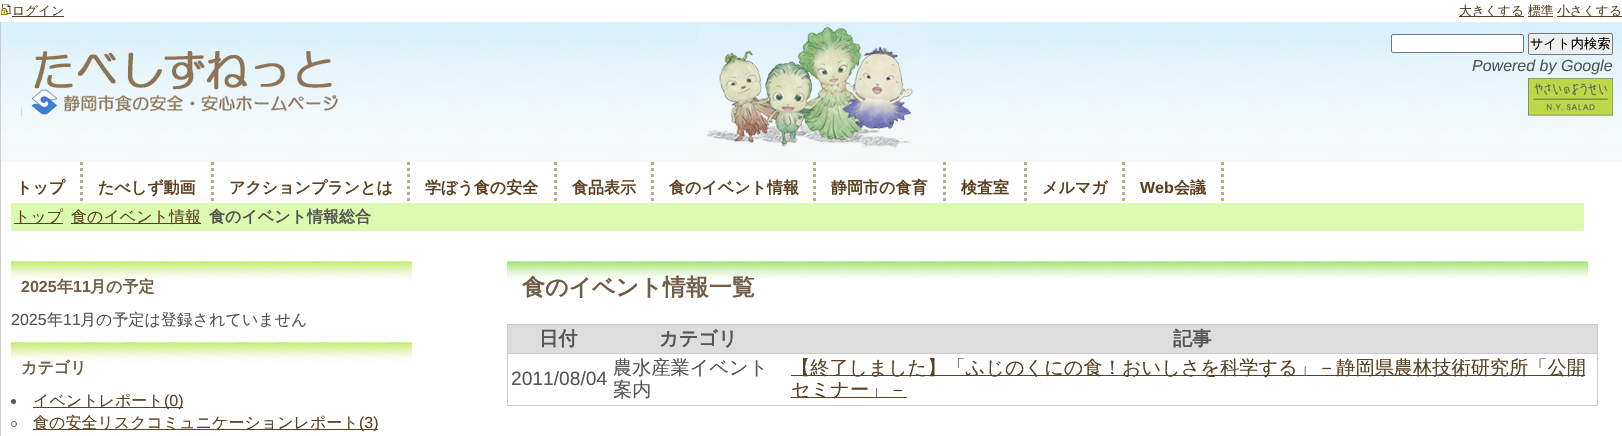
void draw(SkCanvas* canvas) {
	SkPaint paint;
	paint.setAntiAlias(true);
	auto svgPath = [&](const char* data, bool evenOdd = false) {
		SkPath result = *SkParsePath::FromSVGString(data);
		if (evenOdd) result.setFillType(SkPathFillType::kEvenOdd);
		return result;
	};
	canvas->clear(0xffffffff);
	canvas->drawImageRect(SkImages::DeferredFromEncodedData(SkData::MakeFromFileName("img1.png")), SkRect::MakeXYWH(1, 4, 10, 11), SkSamplingOptions());
	paint.setColor(0xff5b4122);
	canvas->drawRect(SkRect::MakeXYWH(12, 16, 52, 1), paint);
	SkFont f1(fontMgr->matchFamilyStyle("WenQuanYi Zen Hei", SkFontStyle(500, SkFontStyle::kNormal_Width, SkFontStyle::kUpright_Slant)), 12.75);
	f1.setSubpixel(true);
	canvas->drawString("ログイン", 12, 15, f1, paint);
	canvas->drawRect(SkRect::MakeXYWH(1459, 16, 65, 1), paint);
	canvas->drawString("大きくする", 1459, 15, f1, paint);
	canvas->drawRect(SkRect::MakeXYWH(1528, 16, 25, 1), paint);
	canvas->drawString("標準", 1528, 15, f1, paint);
	canvas->drawRect(SkRect::MakeXYWH(1557, 16, 65, 1), paint);
	canvas->drawString("小さくする", 1557, 15, f1, paint);
	paint.setColor(0xffcccccc);
	canvas->drawRect(SkRect::MakeXYWH(0, 22, 1, 414), paint);
	canvas->drawImageRect(SkImages::DeferredFromEncodedData(SkData::MakeFromFileName("img2.png")), SkRect::MakeXYWH(1, 22, 1621, 140), SkSamplingOptions());
	canvas->drawImageRect(SkImages::DeferredFromEncodedData(SkData::MakeFromFileName("img3.png")), SkRect::MakeXYWH(698, 22, 229, 126), SkSamplingOptions());
	canvas->drawImageRect(SkImages::DeferredFromEncodedData(SkData::MakeFromFileName("img4.png")), SkRect::MakeXYWH(21, 51, 317, 65), SkSamplingOptions());
	paint.setColor(0xffffffff);
	canvas->drawRoundRect(SkRect::MakeXYWH(1391.5, 34.5, 132, 18), 1.5, 1.5, paint);
	paint.setStroke(true);
	paint.setStrokeWidth(1);
	paint.setColor(0xff767676);
	canvas->drawRoundRect(SkRect::MakeXYWH(1391.5, 34.5, 132, 18), 1.5, 1.5, paint);
	paint.setStroke(false);
	paint.setColor(0xffefefef);
	canvas->drawRoundRect(SkRect::MakeXYWH(1528.5, 33.5, 84, 21), 1.5, 1.5, paint);
	paint.setStroke(true);
	paint.setColor(0xff767676);
	canvas->drawRoundRect(SkRect::MakeXYWH(1528.5, 33.5, 84, 21), 1.5, 1.5, paint);
	SkFont f2(fontMgr->matchFamilyStyle("WenQuanYi Zen Hei", SkFontStyle(500, SkFontStyle::kNormal_Width, SkFontStyle::kUpright_Slant)), 13.25);
	f2.setSubpixel(true);
	paint.setStroke(false);
	paint.setColor(0xff000000);
	canvas->drawString("サイト内検索", 1530, 48, f2, paint);
	SkFont f3(fontMgr->matchFamilyStyle("Liberation Sans", SkFontStyle::Italic()), 16);
	f3.setSubpixel(true);
	paint.setColor(0xff555555);
	canvas->drawString("Powered by Google", 1472, 71, f3, paint);
	canvas->drawImageRect(SkImages::DeferredFromEncodedData(SkData::MakeFromFileName("img5.png")), SkRect::MakeXYWH(1528, 78, 85, 38), SkSamplingOptions());
	paint.setStroke(true);
	paint.setStrokeWidth(3);
	paint.setColor(0xffb7ad93);
	paint.setPathEffect(SkDashPathEffect::Make({{3, 3}}, 0));
	canvas->drawPath(svgPath("M81.5 162V203"), paint);
	paint.setPathEffect(nullptr);
	SkFont f4(fontMgr->matchFamilyStyle("WenQuanYi Zen Hei", SkFontStyle::Bold()), 16);
	f4.setSubpixel(true);
	paint.setStroke(false);
	paint.setColor(0xff5b4122);
	canvas->drawString("トップ", 16, 193, f4, paint);
	paint.setStroke(true);
	paint.setColor(0xffb7ad93);
	paint.setPathEffect(SkDashPathEffect::Make({{3, 3}}, 0));
	canvas->drawPath(svgPath("M212.5 162V203"), paint);
	paint.setPathEffect(nullptr);
	paint.setStroke(false);
	paint.setColor(0xff5b4122);
	canvas->drawString("たべしず動画", 98, 193, f4, paint);
	paint.setStroke(true);
	paint.setColor(0xffb7ad93);
	paint.setPathEffect(SkDashPathEffect::Make({{3, 3}}, 0));
	canvas->drawPath(svgPath("M408.5 162V203"), paint);
	paint.setPathEffect(nullptr);
	paint.setStroke(false);
	paint.setColor(0xff5b4122);
	canvas->drawString("アクションプランとは", 229, 193, f4, paint);
	paint.setStroke(true);
	paint.setColor(0xffb7ad93);
	paint.setPathEffect(SkDashPathEffect::Make({{3, 3}}, 0));
	canvas->drawPath(svgPath("M555.5 162V203"), paint);
	paint.setPathEffect(nullptr);
	paint.setStroke(false);
	paint.setColor(0xff5b4122);
	canvas->drawString("学ぼう食の安全", 425, 193, f4, paint);
	paint.setStroke(true);
	paint.setColor(0xffb7ad93);
	paint.setPathEffect(SkDashPathEffect::Make({{3, 3}}, 0));
	canvas->drawPath(svgPath("M652.5 162V203"), paint);
	paint.setPathEffect(nullptr);
	paint.setStroke(false);
	paint.setColor(0xff5b4122);
	canvas->drawString("食品表示", 572, 193, f4, paint);
	paint.setStroke(true);
	paint.setColor(0xffb7ad93);
	paint.setPathEffect(SkDashPathEffect::Make({{3, 3}}, 0));
	canvas->drawPath(svgPath("M814.5 162V203"), paint);
	paint.setPathEffect(nullptr);
	paint.setStroke(false);
	paint.setColor(0xff5b4122);
	canvas->drawString("食のイベント情報", 669, 193, f4, paint);
	paint.setStroke(true);
	paint.setColor(0xffb7ad93);
	paint.setPathEffect(SkDashPathEffect::Make({{3, 3}}, 0));
	canvas->drawPath(svgPath("M944.5 162V203"), paint);
	paint.setPathEffect(nullptr);
	paint.setStroke(false);
	paint.setColor(0xff5b4122);
	canvas->drawString("静岡市の食育", 831, 193, f4, paint);
	paint.setStroke(true);
	paint.setColor(0xffb7ad93);
	paint.setPathEffect(SkDashPathEffect::Make({{3, 3}}, 0));
	canvas->drawPath(svgPath("M1025.5 162V203"), paint);
	paint.setPathEffect(nullptr);
	paint.setStroke(false);
	paint.setColor(0xff5b4122);
	canvas->drawString("検査室", 961, 193, f4, paint);
	paint.setStroke(true);
	paint.setColor(0xffb7ad93);
	paint.setPathEffect(SkDashPathEffect::Make({{3, 3}}, 0));
	canvas->drawPath(svgPath("M1123.5 162V203"), paint);
	paint.setPathEffect(nullptr);
	paint.setStroke(false);
	paint.setColor(0xff5b4122);
	canvas->drawString("メルマガ", 1042, 193, f4, paint);
	paint.setStroke(true);
	paint.setColor(0xffb7ad93);
	paint.setPathEffect(SkDashPathEffect::Make({{3, 3}}, 0));
	canvas->drawPath(svgPath("M1222.5 162V203"), paint);
	paint.setPathEffect(nullptr);
	SkFont f5(fontMgr->matchFamilyStyle("Liberation Sans", SkFontStyle::Bold()), 16);
	f5.setSubpixel(true);
	paint.setStroke(false);
	paint.setColor(0xff5b4122);
	canvas->drawString("Web", 1140, 193, f5, paint);
	canvas->drawString("会議", 1174, 193, f4, paint);
	paint.setColor(0xffdbfcb0);
	canvas->drawRect(SkRect::MakeXYWH(11, 203, 1573, 28), paint);
	paint.setColor(0xff5b4122);
	canvas->drawRect(SkRect::MakeXYWH(14, 223, 49, 1), paint);
	SkFont f6(fontMgr->matchFamilyStyle("WenQuanYi Zen Hei", SkFontStyle(500, SkFontStyle::kNormal_Width, SkFontStyle::kUpright_Slant)), 16);
	f6.setSubpixel(true);
	canvas->drawString("トップ", 14, 222, f6, paint);
	canvas->drawRect(SkRect::MakeXYWH(71, 223, 130, 1), paint);
	canvas->drawString("食のイベント情報", 71, 222, f6, paint);
	paint.setColor(0xff555555);
	canvas->drawString("食のイベント情報総合", 209, 222, f4, paint);
	canvas->drawImageRect(SkImages::DeferredFromEncodedData(SkData::MakeFromFileName("img6.png")), SkRect::MakeXYWH(11, 261, 401, 19), SkSamplingOptions());
	paint.setColor(0xff725d45);
	canvas->drawString("2025", 21, 292, f5, paint);
	canvas->drawString("年", 57, 292, f4, paint);
	canvas->drawString("11", 73, 292, f5, paint);
	canvas->drawString("月の予定", 90, 292, f4, paint);
	SkFont f7(fontMgr->matchFamilyStyle("Liberation Sans", SkFontStyle::Normal()), 16);
	f7.setSubpixel(true);
	paint.setColor(0xff555555);
	canvas->drawString("2025", 11, 325, f7, paint);
	canvas->drawString("年", 47, 325, f6, paint);
	canvas->drawString("11", 63, 325, f7, paint);
	canvas->drawString("月の予定は登録されていません", 80, 325, f6, paint);
	canvas->drawImageRect(SkImages::DeferredFromEncodedData(SkData::MakeFromFileName("img6.png")), SkRect::MakeXYWH(11, 342, 401, 19), SkSamplingOptions());
	paint.setColor(0xff725d45);
	canvas->drawString("カテゴリ", 21, 373, f4, paint);
	paint.setColor(0xff555555);
	canvas->drawCircle(13.5, 401.5, 2.5, paint);
	paint.setColor(0xff5b4122);
	canvas->drawRect(SkRect::MakeXYWH(33, 407, 150, 1), paint);
	canvas->drawString("イベントレポート", 33, 406, f6, paint);
	canvas->drawString("(0)", 164, 406, f7, paint);
	paint.setStroke(true);
	paint.setStrokeWidth(1);
	paint.setColor(0xff555555);
	canvas->drawCircle(14, 424, 2.5, paint);
	paint.setStroke(false);
	paint.setColor(0xff5b4122);
	canvas->drawRect(SkRect::MakeXYWH(33, 429, 345, 1), paint);
	canvas->drawString("食の安全リスクコミュニケーションレポート", 33, 428, f6, paint);
	canvas->drawString("(3)", 359, 428, f7, paint);
	canvas->drawImageRect(SkImages::DeferredFromEncodedData(SkData::MakeFromFileName("img7.png")), SkRect::MakeXYWH(507, 261, 1081, 19), SkSamplingOptions());
	SkFont f8(fontMgr->matchFamilyStyle("WenQuanYi Zen Hei", SkFontStyle::Bold()), 23);
	f8.setSubpixel(true);
	paint.setColor(0xff725d45);
	canvas->drawString("食のイベント情報一覧", 522, 295, f8, paint);
	paint.setColor(0xffcccccc);
	canvas->drawRect(SkRect::MakeXYWH(507, 324, 1091, 1), paint);
	canvas->drawRect(SkRect::MakeXYWH(1597, 324, 1, 82), paint);
	canvas->drawRect(SkRect::MakeXYWH(507, 405, 1091, 1), paint);
	canvas->drawRect(SkRect::MakeXYWH(507, 324, 1, 82), paint);
	paint.setColor(0xffdddddd);
	canvas->drawRect(SkRect::MakeXYWH(508, 325, 1089, 28), paint);
	SkFont f9(fontMgr->matchFamilyStyle("WenQuanYi Zen Hei", SkFontStyle::Bold()), 19.2);
	f9.setSubpixel(true);
	paint.setColor(0xff555555);
	canvas->drawString("日付", 539, 345, f9, paint);
	canvas->drawString("カテゴリ", 659, 345, f9, paint);
	paint.setColor(0xffcccccc);
	canvas->drawRect(SkRect::MakeXYWH(507, 353, 1091, 1), paint);
	paint.setColor(0xff555555);
	canvas->drawString("記事", 1173, 345, f9, paint);
	SkFont f10(fontMgr->matchFamilyStyle("Liberation Sans", SkFontStyle::Normal()), 19.2);
	f10.setSubpixel(true);
	canvas->drawString("2011/08/04", 511, 385, f10, paint);
	SkFont f11(fontMgr->matchFamilyStyle("WenQuanYi Zen Hei", SkFontStyle(500, SkFontStyle::kNormal_Width, SkFontStyle::kUpright_Slant)), 19.2);
	f11.setSubpixel(true);
	canvas->drawString("農水産業イベント", 613, 374, f11, paint);
	canvas->drawString("案内", 613, 396, f11, paint);
	paint.setColor(0xff5b4122);
	canvas->drawRect(SkRect::MakeXYWH(791, 375, 794, 1), paint);
	canvas->drawString("【終了しました】「ふじのくにの食！おいしさを科学する」－静岡県農林技術研究所「公開", 791, 374, f11, paint);
	canvas->drawRect(SkRect::MakeXYWH(791, 397, 116, 1), paint);
	canvas->drawString("セミナー」－", 791, 396, f11, paint);
}
